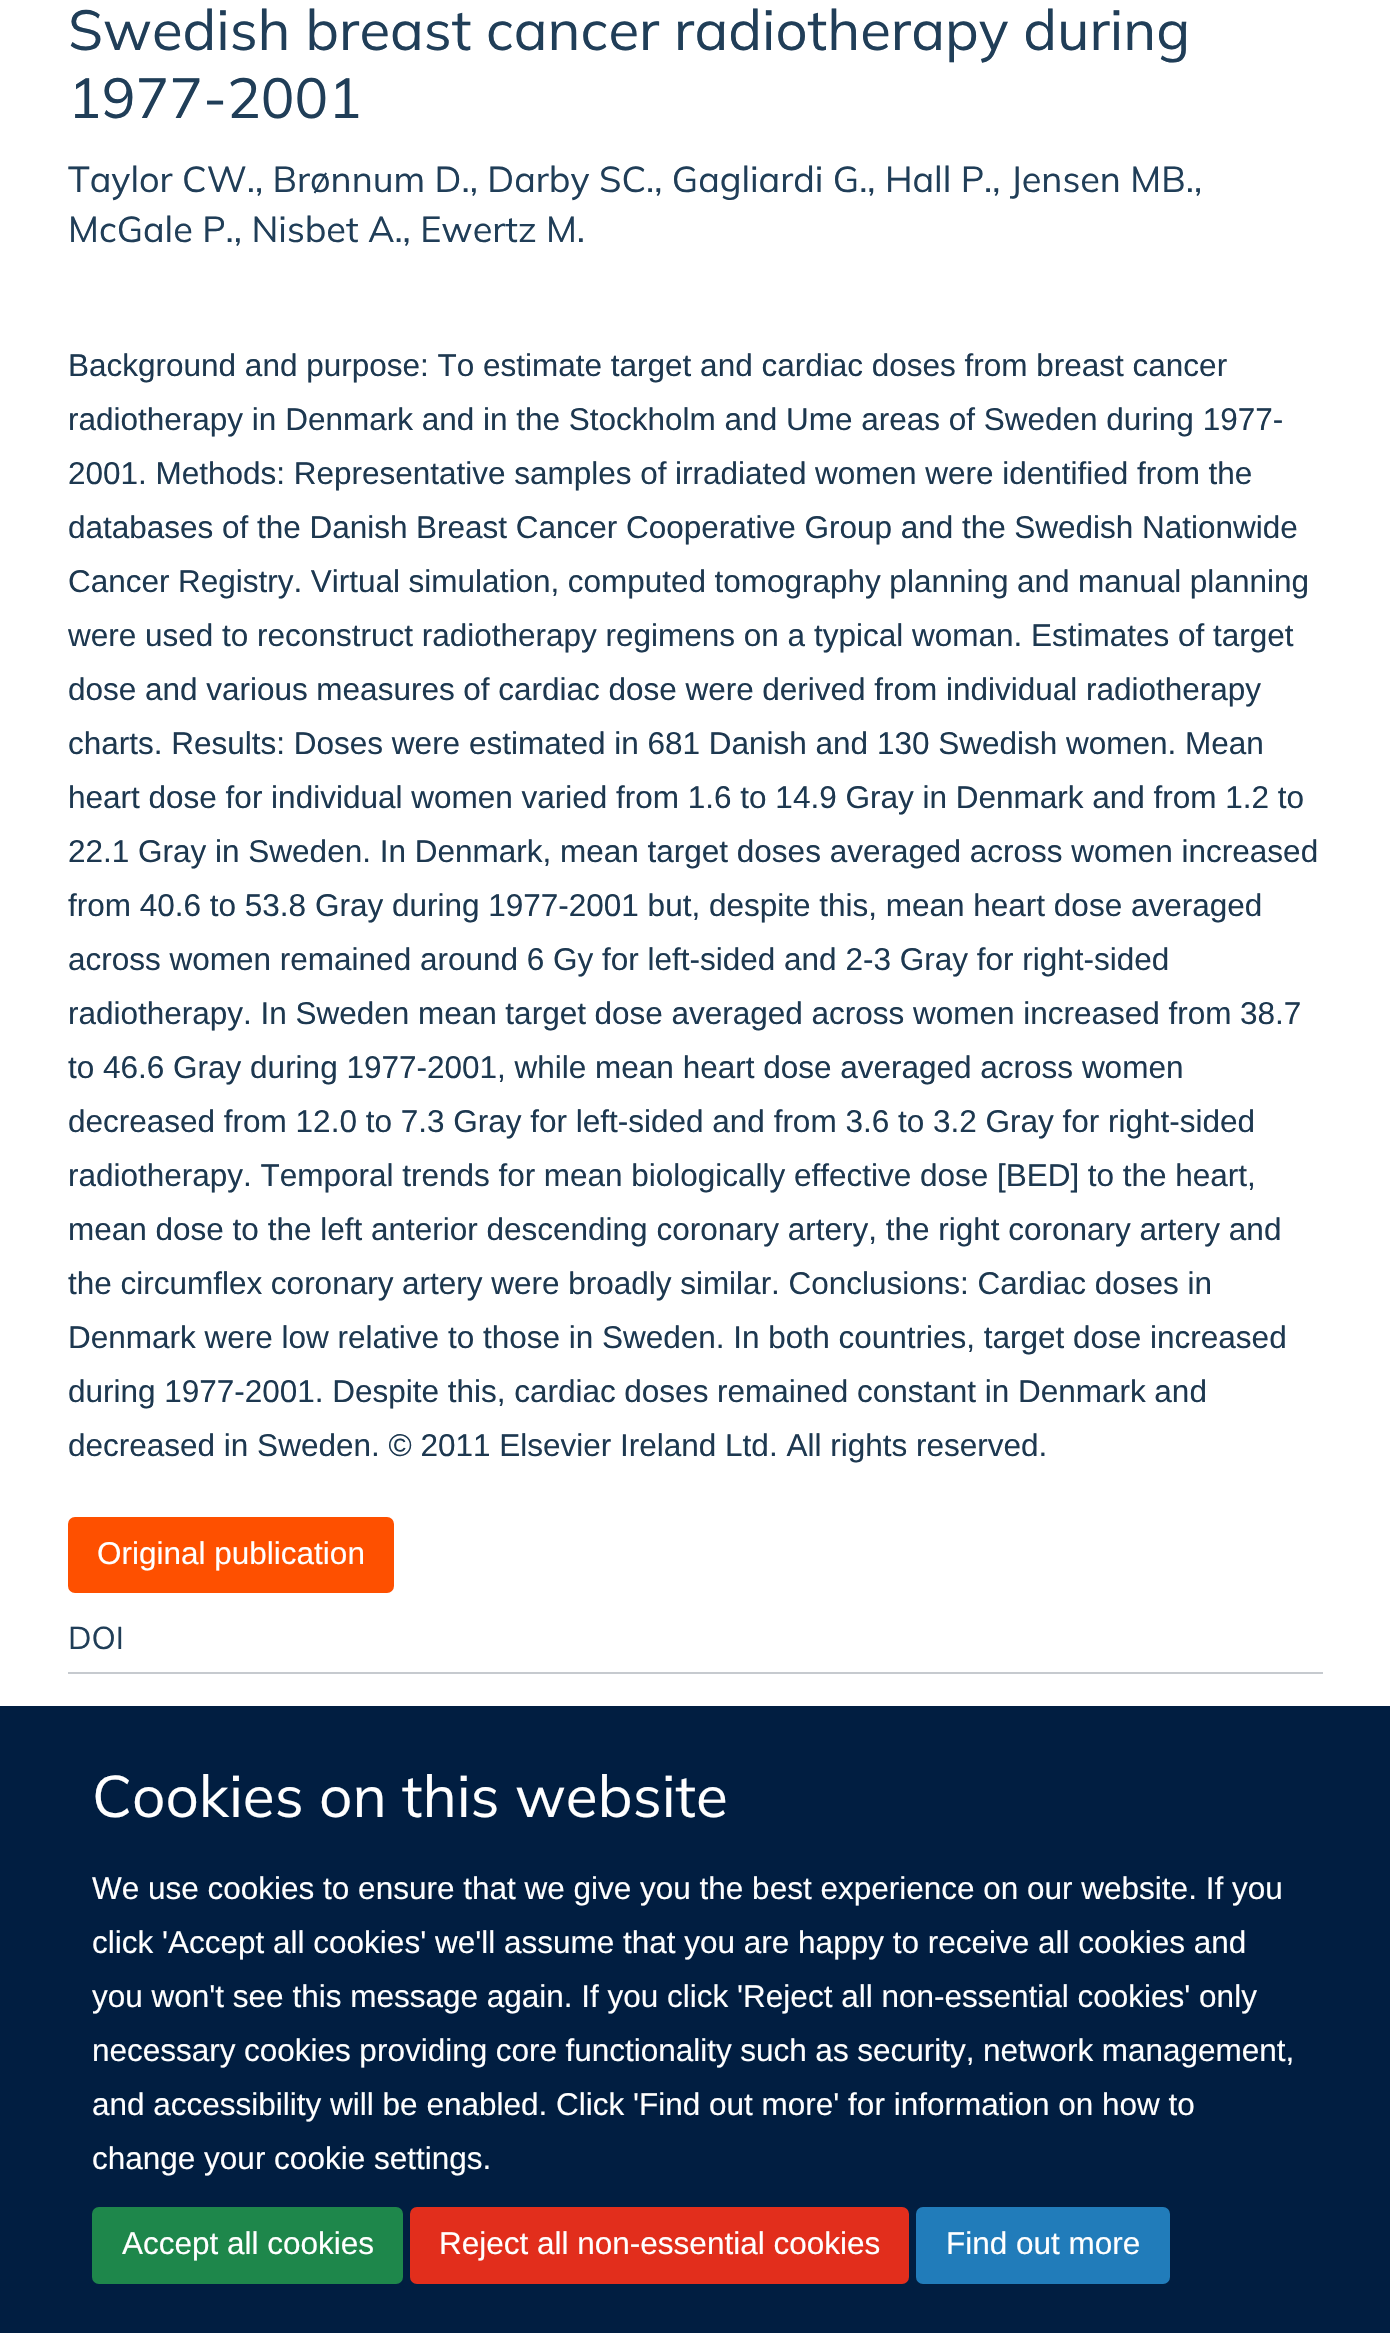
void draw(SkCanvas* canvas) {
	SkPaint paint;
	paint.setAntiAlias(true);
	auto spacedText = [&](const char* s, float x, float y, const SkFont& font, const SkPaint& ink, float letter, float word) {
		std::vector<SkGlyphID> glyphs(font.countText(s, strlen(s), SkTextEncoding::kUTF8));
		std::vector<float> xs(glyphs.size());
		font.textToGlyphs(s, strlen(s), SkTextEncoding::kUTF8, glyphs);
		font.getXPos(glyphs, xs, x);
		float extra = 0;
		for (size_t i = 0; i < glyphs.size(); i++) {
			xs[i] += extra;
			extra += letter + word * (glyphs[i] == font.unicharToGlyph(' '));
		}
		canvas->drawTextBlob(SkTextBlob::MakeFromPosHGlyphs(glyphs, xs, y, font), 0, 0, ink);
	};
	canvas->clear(0xffffffff);
	SkFont f1(fontMgr->matchFamilyStyle("Mulish", SkFontStyle::Normal()), 56.25);
	f1.setSubpixel(true);
	paint.setColor(0xff203e58);
	canvas->drawString("Swedish breast cancer radiotherapy during", 68, 50, f1, paint);
	canvas->drawString("1977-2001", 68, 118, f1, paint);
	SkFont f2(fontMgr->matchFamilyStyle("Mulish", SkFontStyle::Normal()), 36);
	f2.setSubpixel(true);
	canvas->drawString("Taylor CW., Brønnum D., Darby SC., Gagliardi G., Hall P., Jensen MB.,", 68, 192, f2, paint);
	canvas->drawString("McGale P., Nisbet A., Ewertz M.", 68, 242, f2, paint);
	SkFont f3(fontMgr->matchFamilyStyle("Liberation Sans", SkFontStyle::Normal()), 31.5);
	f3.setSubpixel(true);
	paint.setColor(0xff1d3850);
	canvas->drawString("Background and purpose: To estimate target and cardiac doses from breast cancer", 68, 376, f3, paint);
	canvas->drawString("radiotherapy in Denmark and in the Stockholm and Ume areas of Sweden during 1977-", 68, 430, f3, paint);
	spacedText("2001. Methods: Representative samples of irradiated women were identified from the", 68, 484, f3, paint, 0, -0.1);
	spacedText("databases of the Danish Breast Cancer Cooperative Group and the Swedish Nationwide", 68, 538, f3, paint, 0, -0.1);
	spacedText("Cancer Registry. Virtual simulation, computed tomography planning and manual planning", 68, 592, f3, paint, 0, -0.25);
	canvas->drawString("were used to reconstruct radiotherapy regimens on a typical woman. Estimates of target", 68, 646, f3, paint);
	spacedText("dose and various measures of cardiac dose were derived from individual radiotherapy", 68, 700, f3, paint, 0, -0.1);
	canvas->drawString("charts. Results: Doses were estimated in 681 Danish and 130 Swedish women. Mean", 68, 754, f3, paint);
	canvas->drawString("heart dose for individual women varied from 1.6 to 14.9 Gray in Denmark and from 1.2 to", 68, 808, f3, paint);
	canvas->drawString("22.1 Gray in Sweden. In Denmark, mean target doses averaged across women increased", 68, 862, f3, paint);
	canvas->drawString("from 40.6 to 53.8 Gray during 1977-2001 but, despite this, mean heart dose averaged", 68, 916, f3, paint);
	canvas->drawString("across women remained around 6 Gy for left-sided and 2-3 Gray for right-sided", 68, 970, f3, paint);
	spacedText("radiotherapy. In Sweden mean target dose averaged across women increased from 38.7", 68, 1024, f3, paint, 0, -0.1);
	canvas->drawString("to 46.6 Gray during 1977-2001, while mean heart dose averaged across women", 68, 1078, f3, paint);
	canvas->drawString("decreased from 12.0 to 7.3 Gray for left-sided and from 3.6 to 3.2 Gray for right-sided", 68, 1132, f3, paint);
	spacedText("radiotherapy. Temporal trends for mean biologically effective dose [BED] to the heart,", 68, 1186, f3, paint, 0, -0.1);
	canvas->drawString("mean dose to the left anterior descending coronary artery, the right coronary artery and", 68, 1240, f3, paint);
	spacedText("the circumflex coronary artery were broadly similar. Conclusions: Cardiac doses in", 68, 1294, f3, paint, 0, -0.1);
	canvas->drawString("Denmark were low relative to those in Sweden. In both countries, target dose increased", 68, 1348, f3, paint);
	spacedText("during 1977-2001. Despite this, cardiac doses remained constant in Denmark and", 68, 1402, f3, paint, 0, -0.1);
	canvas->drawString("decreased in Sweden. © 2011 Elsevier Ireland Ltd. All rights reserved.", 68, 1456, f3, paint);
	paint.setColor(0xfffe5000);
	canvas->drawRoundRect(SkRect::MakeXYWH(69, 1518, 324, 74), 6, 6, paint);
	paint.setStroke(true);
	paint.setStrokeWidth(2);
	canvas->drawRoundRect(SkRect::MakeXYWH(69, 1518, 324, 74), 6, 6, paint);
	paint.setStroke(false);
	paint.setColor(0xffffffff);
	canvas->drawString("Original publication", 97, 1564, f3, paint);
	paint.setColor(0xffc6cacf);
	canvas->drawRect(SkRect::MakeXYWH(68, 1672, 1255, 2), paint);
	SkFont f4(fontMgr->matchFamilyStyle("Mulish", SkFontStyle::Normal()), 31.5);
	f4.setSubpixel(true);
	paint.setColor(0xff203e58);
	canvas->drawString("DOI", 68, 1649, f4, paint);
	paint.setColor(0xff011e41);
	canvas->drawRect(SkRect::MakeXYWH(0, 1706, 1390, 627), paint);
	SkFont f5(fontMgr->matchFamilyStyle("Mulish", SkFontStyle::Normal()), 58.5);
	f5.setSubpixel(true);
	paint.setColor(0xffffffff);
	canvas->drawString("Cookies on this website", 92, 1817, f5, paint);
	canvas->drawString("We use cookies to ensure that we give you the best experience on our website. If you", 92, 1899, f3, paint);
	canvas->drawString("click 'Accept all cookies' we'll assume that you are happy to receive all cookies and", 92, 1953, f3, paint);
	canvas->drawString("you won't see this message again. If you click 'Reject all non-essential cookies' only", 92, 2007, f3, paint);
	spacedText("necessary cookies providing core functionality such as security, network management,", 92, 2061, f3, paint, 0, -0.25);
	canvas->drawString("and accessibility will be enabled. Click 'Find out more' for information on how to", 92, 2115, f3, paint);
	canvas->drawString("change your cookie settings.", 92, 2169, f3, paint);
	paint.setColor(0xff1e874b);
	canvas->drawRoundRect(SkRect::MakeXYWH(93, 2208, 309, 75), 6, 6, paint);
	paint.setStroke(true);
	canvas->drawRoundRect(SkRect::MakeXYWH(93, 2208, 309, 75), 6, 6, paint);
	paint.setStroke(false);
	paint.setColor(0xffffffff);
	canvas->drawString("Accept all cookies", 122, 2254, f3, paint);
	paint.setColor(0xffe22e1c);
	canvas->drawRoundRect(SkRect::MakeXYWH(411, 2208, 497, 75), 6, 6, paint);
	paint.setStroke(true);
	canvas->drawRoundRect(SkRect::MakeXYWH(411, 2208, 497, 75), 6, 6, paint);
	paint.setStroke(false);
	paint.setColor(0xffffffff);
	canvas->drawString("Reject all non-essential cookies", 439, 2254, f3, paint);
	paint.setColor(0xff217cba);
	canvas->drawRoundRect(SkRect::MakeXYWH(917, 2208, 252, 75), 6, 6, paint);
	paint.setStroke(true);
	canvas->drawRoundRect(SkRect::MakeXYWH(917, 2208, 252, 75), 6, 6, paint);
	paint.setStroke(false);
	paint.setColor(0xffffffff);
	canvas->drawString("Find out more", 946, 2254, f3, paint);
}
